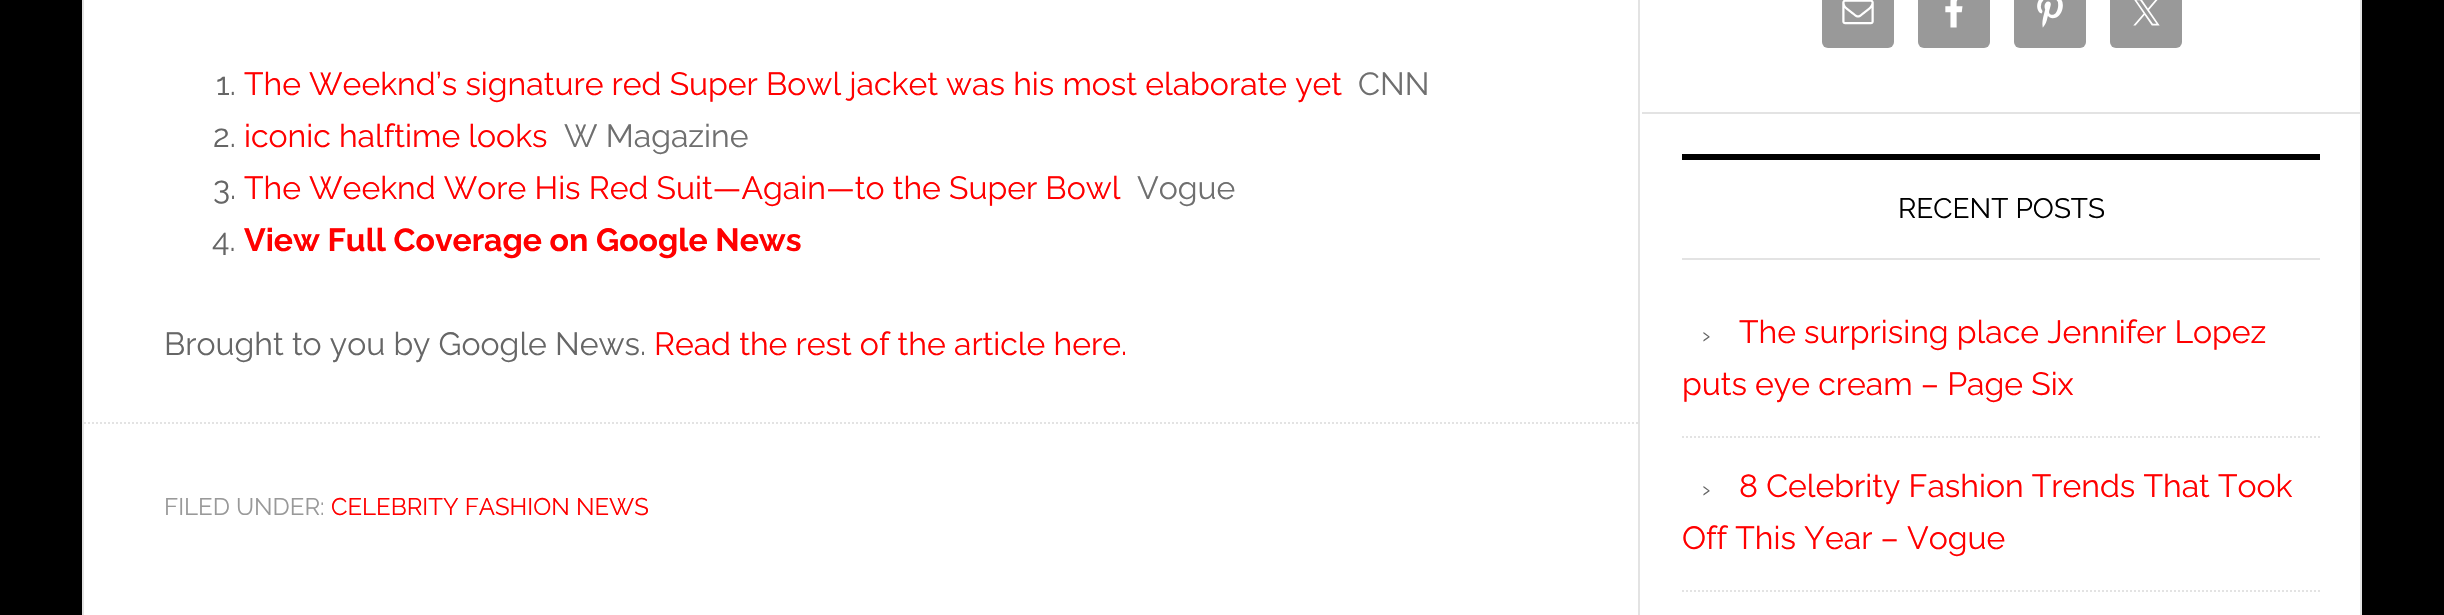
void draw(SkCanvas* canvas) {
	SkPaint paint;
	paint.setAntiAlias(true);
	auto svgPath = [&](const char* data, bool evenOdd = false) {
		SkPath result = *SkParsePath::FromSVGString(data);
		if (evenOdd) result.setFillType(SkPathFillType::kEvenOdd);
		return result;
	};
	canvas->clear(0xff000000);
	paint.setColor(0xffffffff);
	canvas->drawRect(SkRect::MakeXYWH(83, -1, 2278, 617), paint);
	paint.setStroke(true);
	paint.setStrokeWidth(2);
	paint.setColor(0xffe3e3e3);
	canvas->drawRect(SkRect::MakeXYWH(83, -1, 2278, 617), paint);
	paint.setStroke(false);
	canvas->drawRect(SkRect::MakeXYWH(1638, 0, 2, 615), paint);
	SkFont f1(fontMgr->matchFamilyStyle("Raleway", SkFontStyle::Normal()), 32);
	f1.setSubpixel(true);
	paint.setColor(0xff666666);
	canvas->drawString("1.", 216, 95, f1, paint);
	paint.setColor(0xffff0000);
	canvas->drawString("The Weeknd’s signature red Super Bowl jacket was his most elaborate yet", 244, 95, f1, paint);
	paint.setColor(0xff6f6f6f);
	canvas->drawString("CNN", 1358, 95, f1, paint);
	paint.setColor(0xff666666);
	canvas->drawString("2.", 213, 147, f1, paint);
	paint.setColor(0xffff0000);
	canvas->drawString("iconic halftime looks", 244, 147, f1, paint);
	paint.setColor(0xff6f6f6f);
	canvas->drawString("W Magazine", 564, 147, f1, paint);
	paint.setColor(0xff666666);
	canvas->drawString("3.", 213, 199, f1, paint);
	paint.setColor(0xffff0000);
	canvas->drawString("The Weeknd Wore His Red Suit—Again—to the Super Bowl", 244, 199, f1, paint);
	paint.setColor(0xff6f6f6f);
	canvas->drawString("Vogue", 1137, 199, f1, paint);
	paint.setColor(0xff666666);
	canvas->drawString("4.", 212, 251, f1, paint);
	SkFont f2(fontMgr->matchFamilyStyle("Raleway", SkFontStyle::Bold()), 32);
	f2.setSubpixel(true);
	paint.setColor(0xffff0000);
	canvas->drawString("View Full Coverage on Google News", 244, 251, f2, paint);
	paint.setColor(0xff666666);
	canvas->drawString("Brought to you by Google News.", 164, 355, f1, paint);
	paint.setColor(0xffff0000);
	canvas->drawString("Read the rest of the article here.", 654, 355, f1, paint);
	paint.setStroke(true);
	paint.setColor(0xffe3e3e3);
	paint.setPathEffect(SkDashPathEffect::Make({{2, 2}}, 0));
	canvas->drawPath(svgPath("M84 423H1638"), paint);
	paint.setPathEffect(nullptr);
	SkFont f3(fontMgr->matchFamilyStyle("Raleway", SkFontStyle::Normal()), 24);
	f3.setSubpixel(true);
	paint.setStroke(false);
	paint.setColor(0xff999999);
	canvas->drawString("FILED UNDER:", 164, 515, f3, paint);
	paint.setColor(0xffff0000);
	canvas->drawString("CELEBRITY FASHION NEWS", 331, 515, f3, paint);
	paint.setColor(0xffe3e3e3);
	canvas->drawRect(SkRect::MakeXYWH(1642, 112, 718, 2), paint);
	paint.setColor(0xff999999);
	canvas->drawRoundRect(SkRect::MakeXYWH(1822, -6, 72, 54), 6, 6, paint);
	canvas->drawImageRect(SkImages::DeferredFromEncodedData(SkData::MakeFromFileName("img1.png")), SkRect::MakeXYWH(1842, 0, 32, 25), SkSamplingOptions());
	canvas->drawRoundRect(SkRect::MakeXYWH(1918, -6, 72, 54), 6, 6, paint);
	canvas->drawImageRect(SkImages::DeferredFromEncodedData(SkData::MakeFromFileName("img2.png")), SkRect::MakeXYWH(1945, 0, 18, 28), SkSamplingOptions());
	canvas->drawRoundRect(SkRect::MakeXYWH(2014, -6, 72, 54), 6, 6, paint);
	canvas->drawImageRect(SkImages::DeferredFromEncodedData(SkData::MakeFromFileName("img3.png")), SkRect::MakeXYWH(2037, 0, 26, 28), SkSamplingOptions());
	canvas->drawRoundRect(SkRect::MakeXYWH(2110, -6, 72, 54), 6, 6, paint);
	canvas->drawImageRect(SkImages::DeferredFromEncodedData(SkData::MakeFromFileName("img4.png")), SkRect::MakeXYWH(2133, 0, 27, 26), SkSamplingOptions());
	paint.setColor(0xff000000);
	canvas->drawRect(SkRect::MakeXYWH(1682, 154, 638, 6), paint);
	paint.setColor(0xffe3e3e3);
	canvas->drawRect(SkRect::MakeXYWH(1682, 258, 638, 2), paint);
	SkFont f4(fontMgr->matchFamilyStyle("Raleway", SkFontStyle::Normal()), 28);
	f4.setSubpixel(true);
	paint.setColor(0xff000000);
	canvas->drawString("RECENT POSTS", 1898, 218, f4, paint);
	paint.setStroke(true);
	paint.setColor(0xffe3e3e3);
	paint.setPathEffect(SkDashPathEffect::Make({{2, 2}}, 0));
	canvas->drawPath(svgPath("M1682 437H2320"), paint);
	paint.setPathEffect(nullptr);
	paint.setStroke(false);
	paint.setColor(0xff666666);
	canvas->drawString("›", 1702, 343, f3, paint);
	paint.setColor(0xffff0000);
	canvas->drawString("The surprising place Jennifer Lopez", 1739, 343, f1, paint);
	canvas->drawString("puts eye cream – Page Six", 1682, 395, f1, paint);
	paint.setStroke(true);
	paint.setColor(0xffe3e3e3);
	paint.setPathEffect(SkDashPathEffect::Make({{2, 2}}, 0));
	canvas->drawPath(svgPath("M1682 591H2320"), paint);
	paint.setPathEffect(nullptr);
	paint.setStroke(false);
	paint.setColor(0xff666666);
	canvas->drawString("›", 1702, 497, f3, paint);
	paint.setColor(0xffff0000);
	canvas->drawString("8 Celebrity Fashion Trends That Took", 1739, 497, f1, paint);
	canvas->drawString("Off This Year – Vogue", 1682, 549, f1, paint);
}
